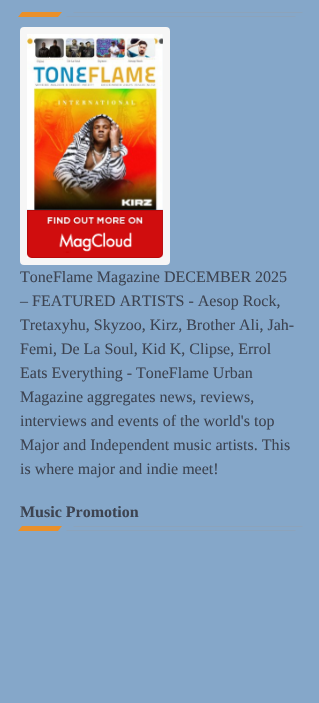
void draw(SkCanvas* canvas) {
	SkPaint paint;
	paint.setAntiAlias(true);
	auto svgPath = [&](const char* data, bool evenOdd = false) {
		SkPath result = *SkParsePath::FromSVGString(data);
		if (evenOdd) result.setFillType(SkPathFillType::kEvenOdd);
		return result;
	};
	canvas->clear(0xff85a7c9);
	paint.setColor(0xffea902a);
	canvas->drawPath(svgPath("M22 12H62L58 17H18Z"), paint);
	paint.setColor(0xff8ca3bb);
	canvas->drawPath(svgPath("M74 12H303L302 13H73Z"), paint);
	canvas->drawPath(svgPath("M67 16H296L295 17H66Z"), paint);
	paint.setStroke(true);
	paint.setStrokeWidth(7);
	paint.setColor(0xfff6f6f6);
	canvas->drawRoundRect(SkRect::MakeXYWH(23.5, 30.5, 143, 231), 0.5, 0.5, paint);
	canvas->drawImageRect(SkImages::DeferredFromEncodedData(SkData::MakeFromFileName("img1.png")), SkRect::MakeXYWH(27, 34, 136, 177), SkSamplingOptions());
	canvas->drawImageRect(SkImages::DeferredFromEncodedData(SkData::MakeFromFileName("img2.png")), SkRect::MakeXYWH(27, 210, 136, 48), SkSamplingOptions());
	SkFont f1(fontMgr->matchFamilyStyle("Liberation Serif", SkFontStyle::Normal()), 16);
	f1.setSubpixel(true);
	paint.setStroke(false);
	paint.setColor(0xff3d4452);
	canvas->drawString("ToneFlame Magazine DECEMBER 2025", 20, 282, f1, paint);
	canvas->drawString("– FEATURED ARTISTS - Aesop Rock,", 20, 306, f1, paint);
	canvas->drawString("Tretaxyhu, Skyzoo, Kirz, Brother Ali, Jah-", 20, 330, f1, paint);
	canvas->drawString("Femi, De La Soul, Kid K, Clipse, Errol", 20, 354, f1, paint);
	canvas->drawString("Eats Everything - ToneFlame Urban", 20, 378, f1, paint);
	canvas->drawString("Magazine aggregates news, reviews,", 20, 402, f1, paint);
	canvas->drawString("interviews and events of the world's top", 20, 426, f1, paint);
	canvas->drawString("Major and Independent music artists. This", 20, 450, f1, paint);
	canvas->drawString("is where major and indie meet!", 20, 474, f1, paint);
	SkFont f2(fontMgr->matchFamilyStyle("Liberation Serif", SkFontStyle::Bold()), 16);
	f2.setSubpixel(true);
	canvas->drawString("Music Promotion", 20, 517, f2, paint);
	paint.setColor(0xffea902a);
	canvas->drawPath(svgPath("M22 526H62L58 531H18Z"), paint);
	paint.setColor(0xff8ca3bb);
	canvas->drawPath(svgPath("M74 526H303L302 527H73Z"), paint);
	canvas->drawPath(svgPath("M67 530H296L295 531H66Z"), paint);
}
